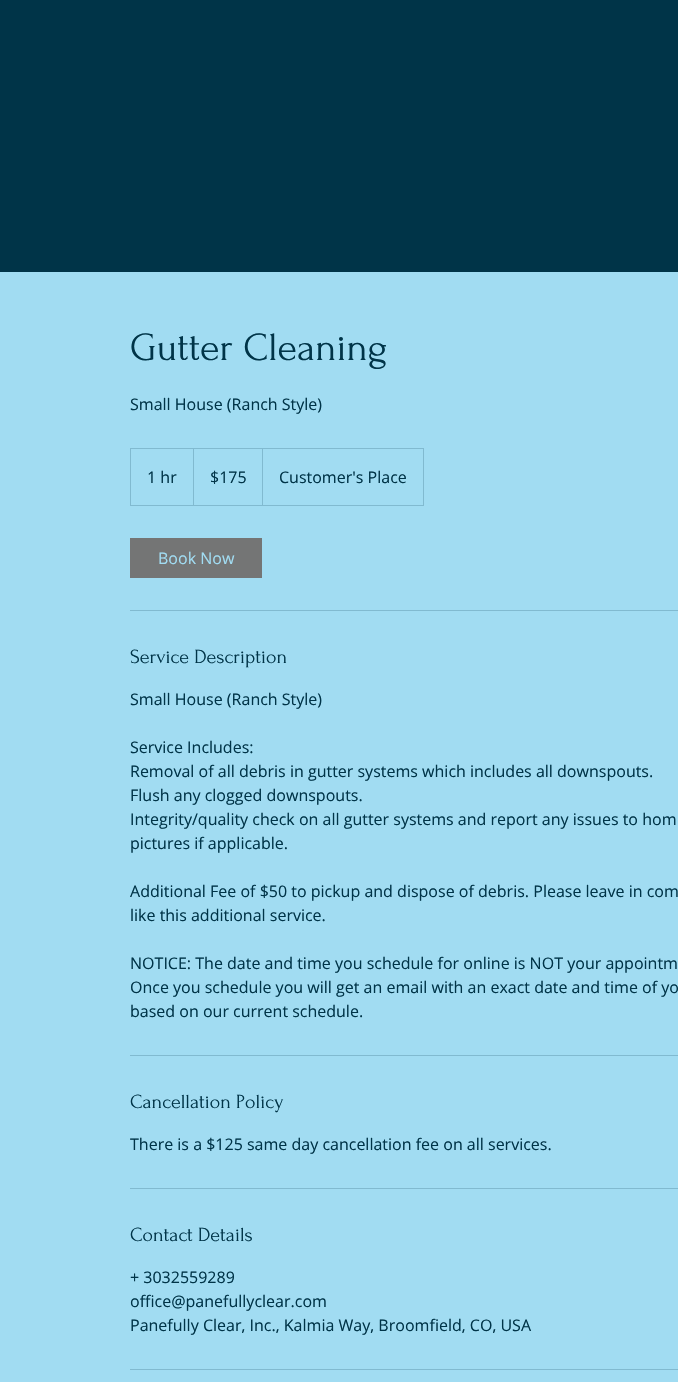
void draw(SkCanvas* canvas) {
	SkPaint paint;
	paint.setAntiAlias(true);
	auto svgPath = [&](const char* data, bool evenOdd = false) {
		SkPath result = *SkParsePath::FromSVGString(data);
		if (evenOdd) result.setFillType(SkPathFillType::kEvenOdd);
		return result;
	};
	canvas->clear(0xffa1dcf2);
	paint.setColor(0xff003448);
	canvas->drawRect(SkRect::MakeXYWH(0, 0, 678, 272), paint);
	SkFont f1(fontMgr->matchFamilyStyle("Forum", SkFontStyle::Normal()), 40);
	f1.setSubpixel(true);
	canvas->drawString("Gutter Cleaning", 130, 360, f1, paint);
	SkFont f2(fontMgr->matchFamilyStyle("Open Sans", SkFontStyle::Normal()), 16);
	f2.setSubpixel(true);
	canvas->drawString("Small House (Ranch Style)", 130, 410, f2, paint);
	paint.setStroke(true);
	paint.setStrokeWidth(1);
	paint.setColor(0xff81bad0);
	canvas->drawRect(SkRect::MakeXYWH(130.5, 448.5, 293, 57), paint);
	paint.setStroke(false);
	paint.setColor(0xff003448);
	canvas->drawString("1 hr", 147, 483, f2, paint);
	paint.setColor(0xff81bad0);
	canvas->drawPath(svgPath("M193 505V448L194 449V505Z"), paint);
	paint.setColor(0xff003448);
	canvas->drawString("$175", 210, 483, f2, paint);
	paint.setColor(0xff81bad0);
	canvas->drawPath(svgPath("M262 505V448L263 449V505Z"), paint);
	paint.setColor(0xff003448);
	canvas->drawString("Customer's Place", 279, 483, f2, paint);
	paint.setColor(0xff747575);
	canvas->drawRect(SkRect::MakeXYWH(130, 538, 132, 40), paint);
	paint.setColor(0xffa1dcf2);
	canvas->drawString("Book Now", 158, 564, f2, paint);
	paint.setColor(0xff81bad0);
	canvas->drawRect(SkRect::MakeXYWH(130, 610, 548, 1), paint);
	SkFont f3(fontMgr->matchFamilyStyle("Forum", SkFontStyle::Normal()), 20);
	f3.setSubpixel(true);
	paint.setColor(0xff003448);
	canvas->drawString("Service Description", 130, 663, f3, paint);
	canvas->drawString("Small House (Ranch Style)", 130, 705, f2, paint);
	canvas->drawString("Service Includes:", 130, 753, f2, paint);
	canvas->drawString("Removal of all debris in gutter systems which includes all downspouts.", 130, 777, f2, paint);
	canvas->drawString("Flush any clogged downspouts.", 130, 801, f2, paint);
	canvas->drawString("Integrity/quality check on all gutter systems and report any issues to hom", 130, 825, f2, paint);
	canvas->drawString("pictures if applicable.", 130, 849, f2, paint);
	canvas->drawString("Additional Fee of $50 to pickup and dispose of debris. Please leave in com", 130, 897, f2, paint);
	canvas->drawString("like this additional service.", 130, 921, f2, paint);
	canvas->drawString("NOTICE: The date and time you schedule for online is NOT your appointm", 130, 969, f2, paint);
	canvas->drawString("Once you schedule you will get an email with an exact date and time of yo", 130, 993, f2, paint);
	canvas->drawString("based on our current schedule.", 130, 1017, f2, paint);
	paint.setColor(0xff81bad0);
	canvas->drawRect(SkRect::MakeXYWH(130, 1055, 548, 1), paint);
	paint.setColor(0xff003448);
	canvas->drawString("Cancellation Policy", 130, 1108, f3, paint);
	canvas->drawString("There is a $125 same day cancellation fee on all services.", 130, 1150, f2, paint);
	paint.setColor(0xff81bad0);
	canvas->drawRect(SkRect::MakeXYWH(130, 1188, 548, 1), paint);
	paint.setColor(0xff003448);
	canvas->drawString("Contact Details", 130, 1241, f3, paint);
	canvas->drawString("+ 3032559289", 130, 1283, f2, paint);
	canvas->drawString("office@panefullyclear.com", 130, 1307, f2, paint);
	canvas->drawString("Panefully Clear, Inc., Kalmia Way, Broomfield, CO, USA", 130, 1331, f2, paint);
	paint.setColor(0xff81bad0);
	canvas->drawRect(SkRect::MakeXYWH(130, 1369, 548, 1), paint);
}
